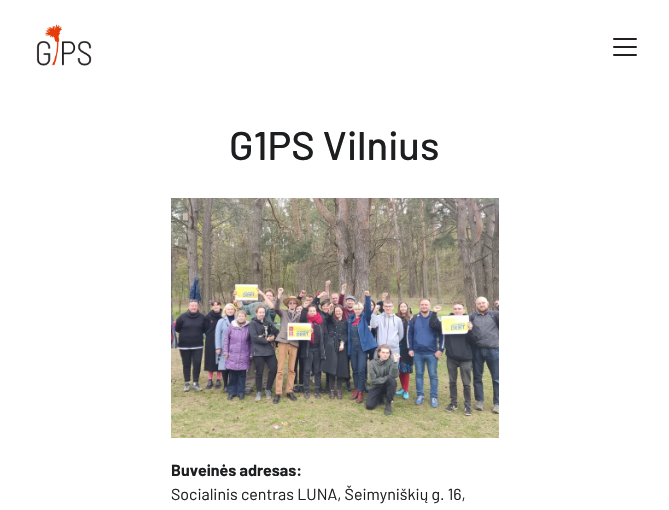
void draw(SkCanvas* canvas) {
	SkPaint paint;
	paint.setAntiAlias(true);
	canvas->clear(0xffffffff);
	canvas->drawImageRect(SkImages::DeferredFromEncodedData(SkData::MakeFromFileName("img1.png")), SkRect::MakeXYWH(36, 24, 56, 42), SkSamplingOptions());
	paint.setColor(0xff231f20);
	canvas->drawRoundRect(SkRect::MakeXYWH(613, 38, 24, 2), 1, 1, paint);
	canvas->drawRoundRect(SkRect::MakeXYWH(613, 46, 24, 2), 1, 1, paint);
	canvas->drawRoundRect(SkRect::MakeXYWH(613, 54, 24, 2), 1, 1, paint);
	SkFont f1(fontMgr->matchFamilyStyle("Barlow", SkFontStyle(500, SkFontStyle::kNormal_Width, SkFontStyle::kUpright_Slant)), 40);
	f1.setSubpixel(true);
	paint.setColor(0xff1d1e20);
	canvas->drawString("G1PS Vilnius", 229, 160, f1, paint);
	canvas->drawImageRect(SkImages::DeferredFromEncodedData(SkData::MakeFromFileName("img2.png")), SkRect::MakeXYWH(171, 198, 328, 240), SkSamplingOptions());
	SkFont f2(fontMgr->matchFamilyStyle("Barlow", SkFontStyle::Bold()), 16);
	f2.setSubpixel(true);
	canvas->drawString("Buveinės adresas:", 171, 476, f2, paint);
	SkFont f3(fontMgr->matchFamilyStyle("Barlow", SkFontStyle::Normal()), 16);
	f3.setSubpixel(true);
	canvas->drawString("Socialinis centras LUNA, Šeimyniškių g. 16,", 171, 500, f3, paint);
}
